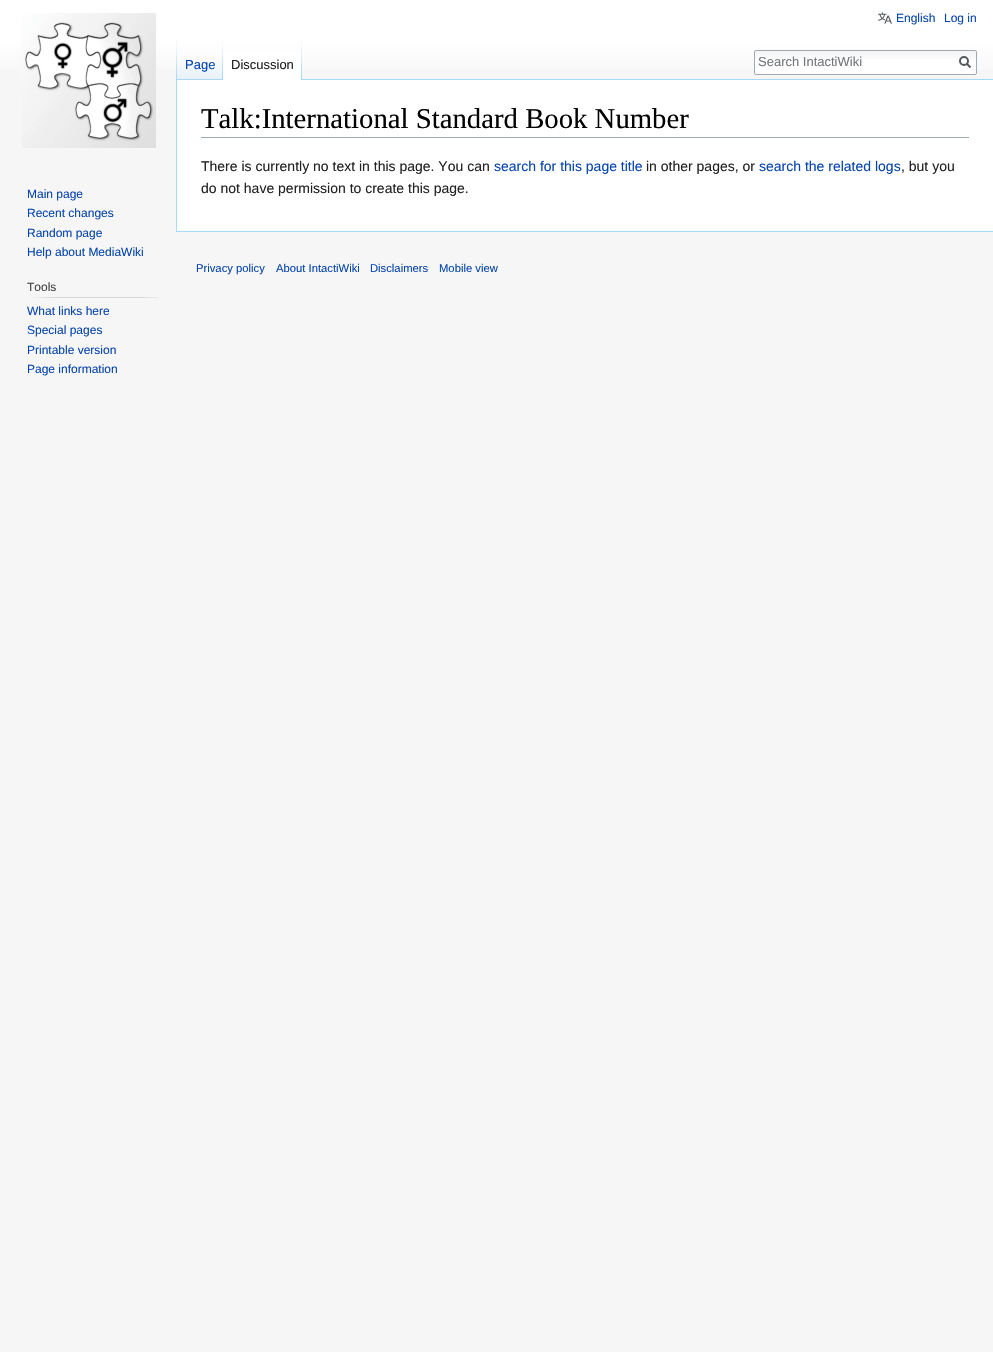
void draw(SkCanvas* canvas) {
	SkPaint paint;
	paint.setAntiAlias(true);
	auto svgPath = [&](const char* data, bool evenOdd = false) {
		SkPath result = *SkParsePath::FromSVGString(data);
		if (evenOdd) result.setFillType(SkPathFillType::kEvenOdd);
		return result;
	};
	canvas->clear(0xfff6f6f6);
	{
		const SkColor colors[] = {0xffffffff, 0xfff6f6f6};
		const float stops[] = {0.5, 1};
		const SkPoint ends[] = {{497, 0}, {497, 80}};
		paint.setShader(SkGradientShader::MakeLinear(ends, colors, stops, 2, SkTileMode::kClamp));
		paint.setAlpha(255);
	}
	canvas->drawRect(SkRect::MakeXYWH(0, 0, 993, 69), paint);
	canvas->drawImageRect(SkImages::DeferredFromEncodedData(SkData::MakeFromFileName("img1.png")), SkRect::MakeXYWH(878, 12, 14, 12), SkSamplingOptions());
	SkFont f1(fontMgr->matchFamilyStyle("Liberation Sans", SkFontStyle::Normal()), 12);
	f1.setSubpixel(true);
	paint.setShader(nullptr);
	paint.setColor(0xff0645ad);
	canvas->drawString("English", 896, 22, f1, paint);
	canvas->drawString("Log in", 944, 22, f1, paint);
	canvas->drawImageRect(SkImages::DeferredFromEncodedData(SkData::MakeFromFileName("img2.png")), SkRect::MakeXYWH(176, 40, 1, 39), SkSamplingOptions());
	canvas->drawImageRect(SkImages::DeferredFromEncodedData(SkData::MakeFromFileName("img3.png")), SkRect::MakeXYWH(177, 62, 45, 17), SkSamplingOptions());
	canvas->drawImageRect(SkImages::DeferredFromEncodedData(SkData::MakeFromFileName("img2.png")), SkRect::MakeXYWH(222, 40, 1, 39), SkSamplingOptions());
	SkFont f2(fontMgr->matchFamilyStyle("Liberation Sans", SkFontStyle::Normal()), 13);
	f2.setSubpixel(true);
	canvas->drawString("Page", 185, 69, f2, paint);
	paint.setColor(0xffa7d7f9);
	canvas->drawRect(SkRect::MakeXYWH(176, 79, 817, 1), paint);
	paint.setColor(0xffffffff);
	canvas->drawRect(SkRect::MakeXYWH(223, 51, 78, 29), paint);
	canvas->drawImageRect(SkImages::DeferredFromEncodedData(SkData::MakeFromFileName("img4.png")), SkRect::MakeXYWH(301, 40, 1, 40), SkSamplingOptions());
	paint.setColor(0xff222222);
	canvas->drawString("Discussion", 231, 69, f2, paint);
	paint.setColor(0xffffffff);
	canvas->drawRoundRect(SkRect::MakeXYWH(754, 50, 223, 25), 2, 2, paint);
	canvas->drawImageRect(SkImages::DeferredFromEncodedData(SkData::MakeFromFileName("img5.png")), SkRect::MakeXYWH(754, 51, 223, 8), SkSamplingOptions());
	paint.setStroke(true);
	paint.setStrokeWidth(1);
	paint.setColor(0xffa2a9b1);
	canvas->drawRoundRect(SkRect::MakeXYWH(754.5, 50.5, 222, 24), 1.5, 1.5, paint);
	paint.setStroke(false);
	paint.setColor(0xff72777d);
	canvas->drawString("Search IntactiWiki", 758, 66, f2, paint);
	paint.setStroke(true);
	paint.setStrokeWidth(2);
	paint.setColor(0xff54595d);
	canvas->drawPath(svgPath("M970.5 67.5L966.5 63.5"), paint);
	canvas->drawCircle(964, 61, 4, paint);
	canvas->drawImageRect(SkImages::DeferredFromEncodedData(SkData::MakeFromFileName("img6.png")), SkRect::MakeXYWH(21, 13, 135, 135), SkSamplingOptions());
	paint.setStroke(false);
	paint.setColor(0xff0645ad);
	canvas->drawString("Main page", 27, 198, f1, paint);
	canvas->drawString("Recent changes", 27, 217, f1, paint);
	canvas->drawString("Random page", 27, 237, f1, paint);
	canvas->drawString("Help about MediaWiki", 27, 256, f1, paint);
	paint.setColor(0xff444444);
	canvas->drawString("Tools", 27, 291, f1, paint);
	canvas->drawImageRect(SkImages::DeferredFromEncodedData(SkData::MakeFromFileName("img7.png")), SkRect::MakeXYWH(30, 297, 128, 1), SkSamplingOptions());
	paint.setColor(0xff0645ad);
	canvas->drawString("What links here", 27, 315, f1, paint);
	canvas->drawString("Special pages", 27, 334, f1, paint);
	canvas->drawString("Printable version", 27, 354, f1, paint);
	canvas->drawString("Page information", 27, 373, f1, paint);
	paint.setColor(0xffffffff);
	canvas->drawRect(SkRect::MakeXYWH(177, 80, 816, 151), paint);
	paint.setColor(0xffa7d7f9);
	canvas->drawRect(SkRect::MakeXYWH(176, 231, 817, 1), paint);
	canvas->drawRect(SkRect::MakeXYWH(176, 79, 1, 153), paint);
	paint.setColor(0xffa2a9b1);
	canvas->drawRect(SkRect::MakeXYWH(201, 137, 768, 1), paint);
	SkFont f3(fontMgr->matchFamilyStyle("Liberation Serif", SkFontStyle::Normal()), 28.75);
	f3.setSubpixel(true);
	paint.setColor(0xff000000);
	canvas->drawString("Talk:International Standard Book Number", 201, 128, f3, paint);
	SkFont f4(fontMgr->matchFamilyStyle("Liberation Sans", SkFontStyle::Normal()), 14);
	f4.setSubpixel(true);
	paint.setColor(0xff222222);
	canvas->drawString("There is currently no text in this page. You can", 201, 171, f4, paint);
	paint.setColor(0xff0645ad);
	canvas->drawString("search for this page title", 494, 171, f4, paint);
	paint.setColor(0xff222222);
	canvas->drawString("in other pages, or", 646, 171, f4, paint);
	paint.setColor(0xff0645ad);
	canvas->drawString("search the related logs", 759, 171, f4, paint);
	paint.setColor(0xff222222);
	canvas->drawString(", but you", 901, 171, f4, paint);
	canvas->drawString("do not have permission to create this page.", 201, 193, f4, paint);
	SkFont f5(fontMgr->matchFamilyStyle("Liberation Sans", SkFontStyle::Normal()), 11.25);
	f5.setSubpixel(true);
	paint.setColor(0xff0645ad);
	canvas->drawString("Privacy policy", 196, 272, f5, paint);
	canvas->drawString("About IntactiWiki", 276, 272, f5, paint);
	canvas->drawString("Disclaimers", 370, 272, f5, paint);
	canvas->drawString("Mobile view", 439, 272, f5, paint);
}
